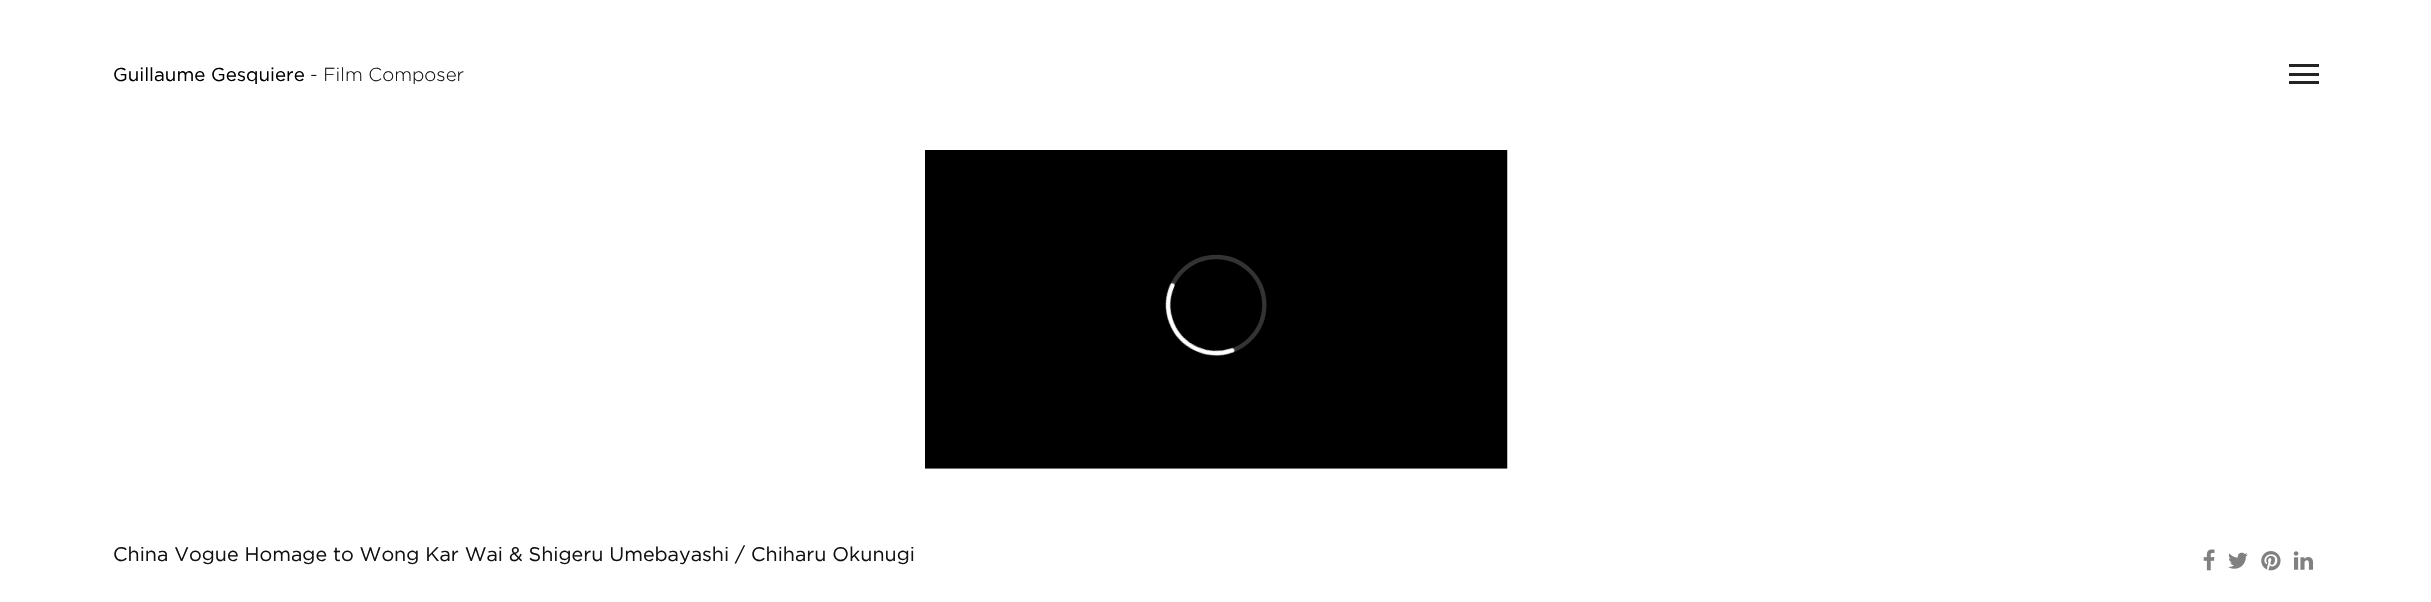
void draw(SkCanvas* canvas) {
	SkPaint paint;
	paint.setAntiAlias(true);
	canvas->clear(0xffffffff);
	SkFont f1(fontMgr->matchFamilyStyle("Gotham", SkFontStyle::Normal()), 18.75);
	f1.setSubpixel(true);
	paint.setColor(0xff000000);
	canvas->drawString("Guillaume Gesquiere", 113, 81, f1, paint);
	SkFont f2(fontMgr->matchFamilyStyle("Gotham", SkFontStyle(300, SkFontStyle::kNormal_Width, SkFontStyle::kUpright_Slant)), 18.75);
	f2.setSubpixel(true);
	paint.setColor(0xff111111);
	canvas->drawString("- Film Composer", 310, 81, f2, paint);
	paint.setColor(0xff232323);
	canvas->drawRect(SkRect::MakeXYWH(2289, 73, 30, 3), paint);
	canvas->drawRect(SkRect::MakeXYWH(2289, 64, 30, 3), paint);
	canvas->drawRect(SkRect::MakeXYWH(2289, 81, 30, 3), paint);
	canvas->drawImageRect(SkImages::DeferredFromEncodedData(SkData::MakeFromFileName("img1.png")), SkRect::MakeXYWH(925, 150, 583, 319), SkSamplingOptions());
	SkFont f3(fontMgr->matchFamilyStyle("Gotham", SkFontStyle::Normal()), 19.7);
	f3.setSubpixel(true);
	paint.setColor(0xff111111);
	canvas->drawString("China Vogue Homage to Wong Kar Wai & Shigeru Umebayashi / Chiharu Okunugi", 113, 561, f3, paint);
	canvas->drawImageRect(SkImages::DeferredFromEncodedData(SkData::MakeFromFileName("img2.png")), SkRect::MakeXYWH(2203, 549, 12, 22), SkSamplingOptions());
	canvas->drawImageRect(SkImages::DeferredFromEncodedData(SkData::MakeFromFileName("img3.png")), SkRect::MakeXYWH(2228, 552, 20, 17), SkSamplingOptions());
	canvas->drawImageRect(SkImages::DeferredFromEncodedData(SkData::MakeFromFileName("img4.png")), SkRect::MakeXYWH(2261, 551, 20, 20), SkSamplingOptions());
	canvas->drawImageRect(SkImages::DeferredFromEncodedData(SkData::MakeFromFileName("img5.png")), SkRect::MakeXYWH(2293, 551, 21, 19), SkSamplingOptions());
}
